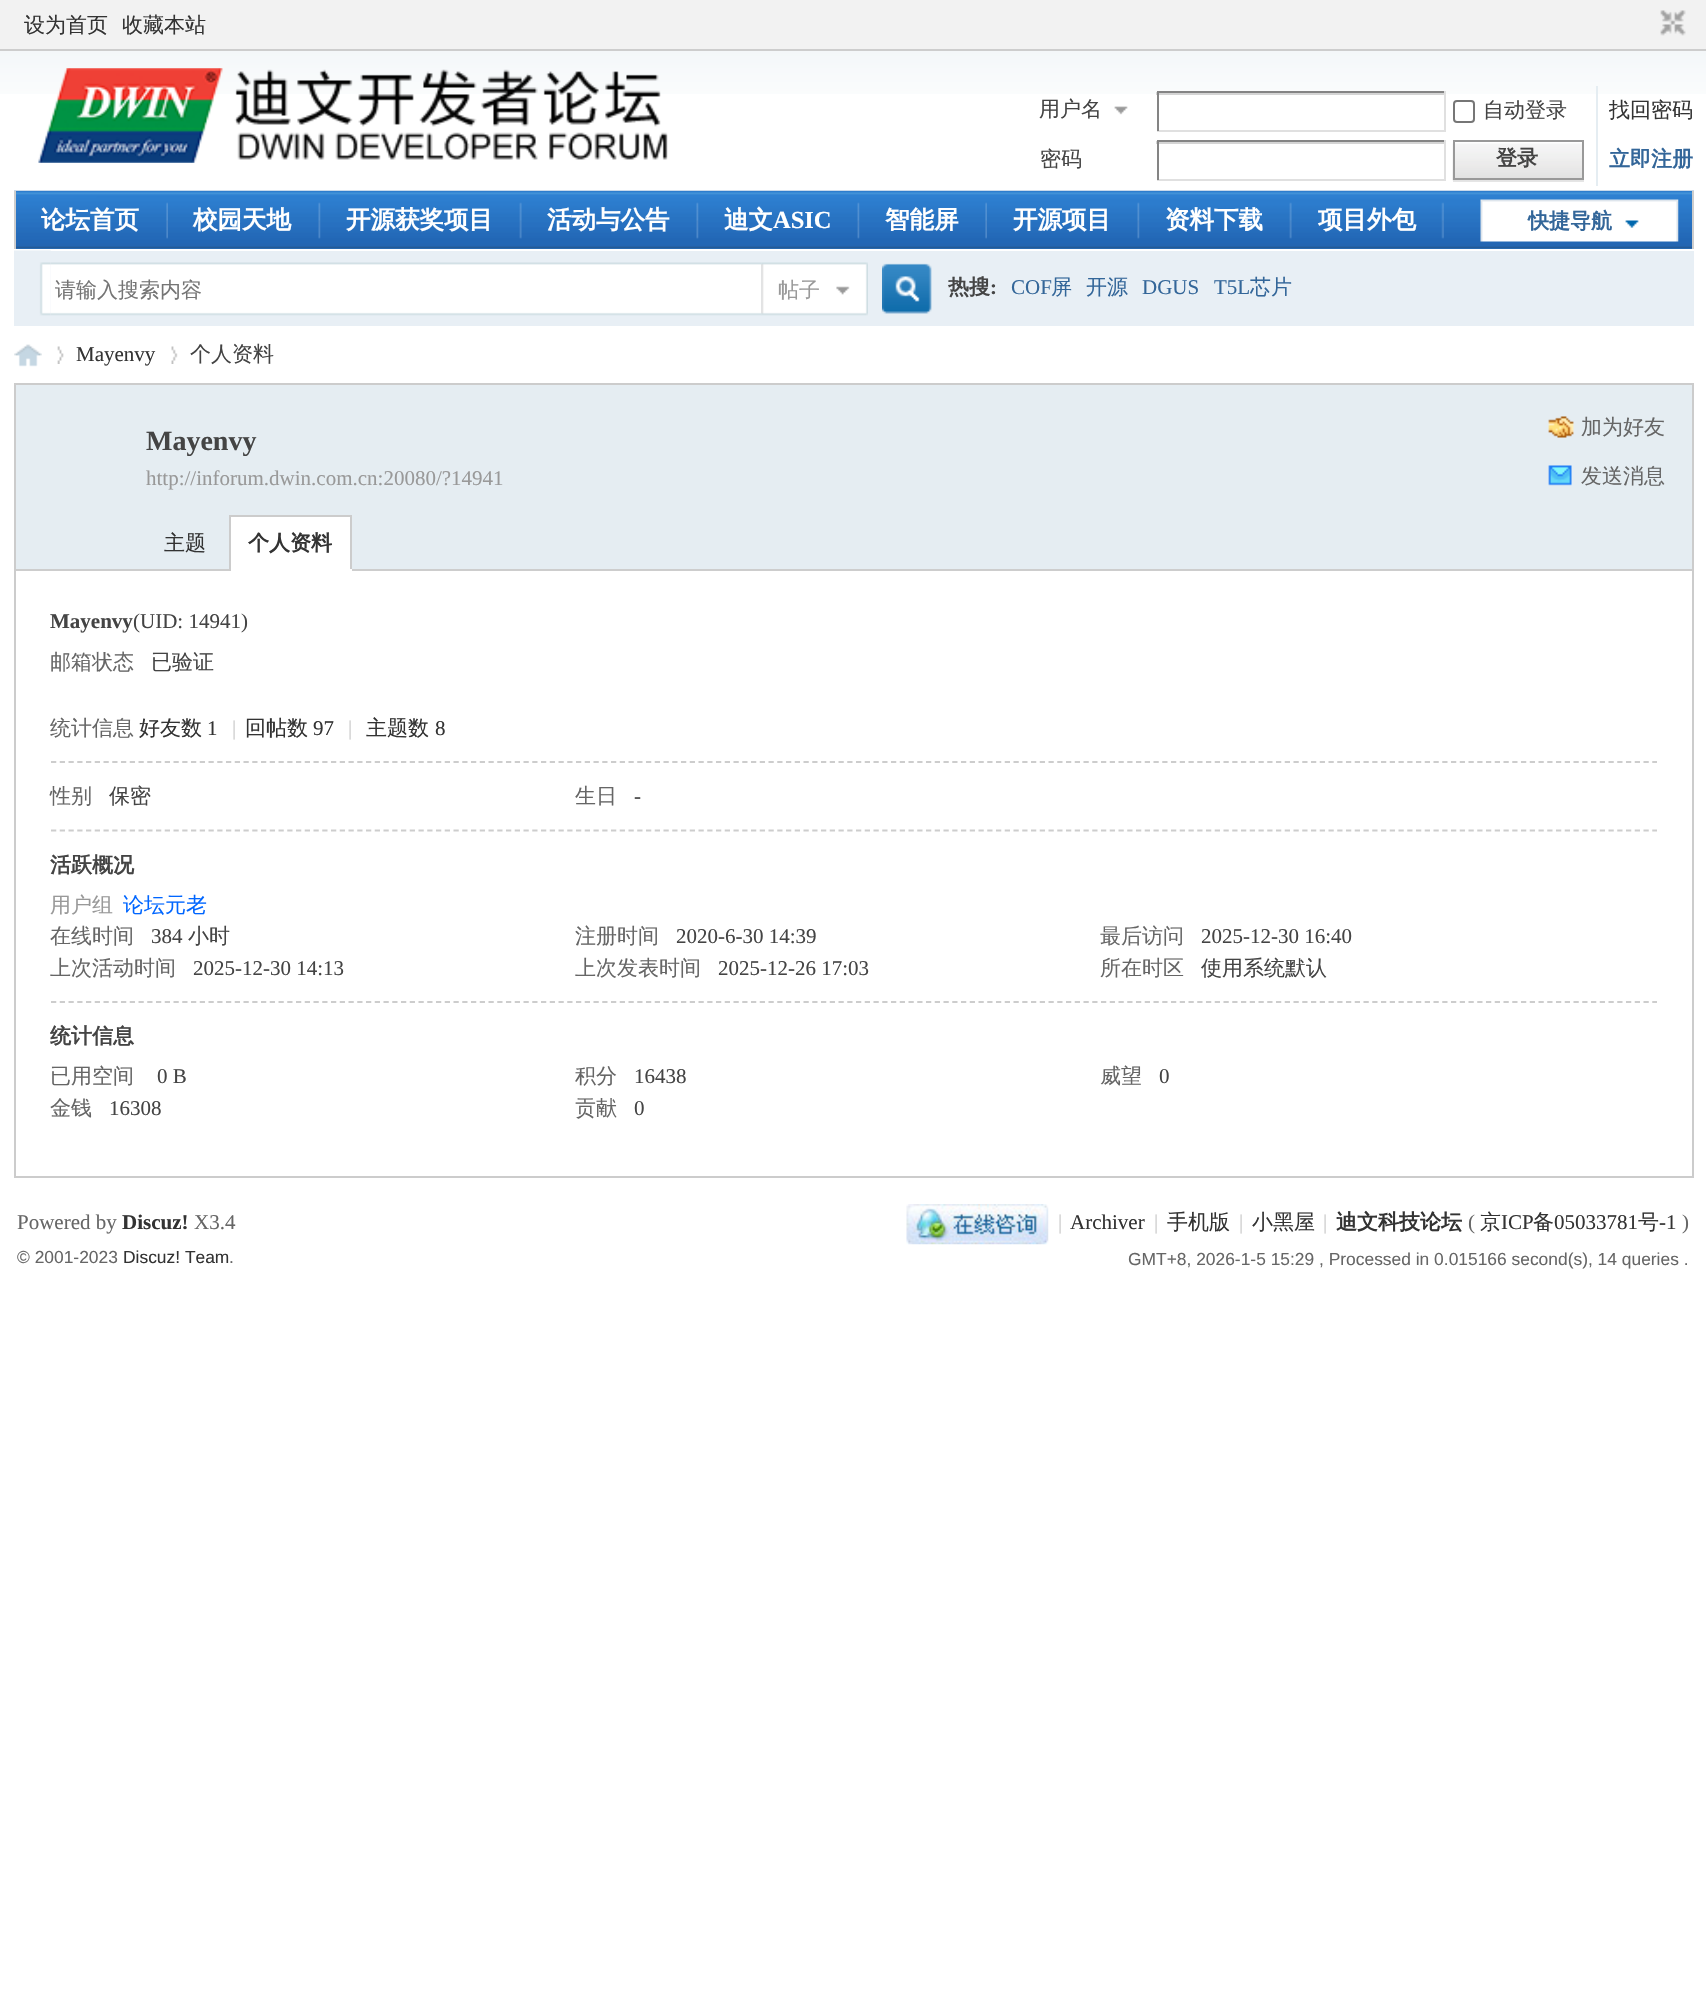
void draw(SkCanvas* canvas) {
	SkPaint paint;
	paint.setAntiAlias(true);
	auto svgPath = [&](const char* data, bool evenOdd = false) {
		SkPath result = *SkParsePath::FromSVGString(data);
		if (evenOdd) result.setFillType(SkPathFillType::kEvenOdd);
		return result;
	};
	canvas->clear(0xffffffff);
	canvas->drawImageRect(SkImages::DeferredFromEncodedData(SkData::MakeFromFileName("img1.png")), SkRect::MakeXYWH(0, 51, 1706, 43), SkSamplingOptions());
	paint.setColor(0xfff2f2f2);
	canvas->drawRect(SkRect::MakeXYWH(0, 0, 1706, 49), paint);
	paint.setColor(0xffcdcdcd);
	canvas->drawRect(SkRect::MakeXYWH(0, 49, 1706, 2), paint);
	SkFont f1(fontMgr->matchFamilyStyle("WenQuanYi Zen Hei", SkFontStyle(500, SkFontStyle::kNormal_Width, SkFontStyle::kUpright_Slant)), 21);
	f1.setSubpixel(true);
	paint.setColor(0xff333333);
	canvas->drawString("设为首页", 24, 32, f1, paint);
	canvas->drawString("收藏本站", 122, 32, f1, paint);
	canvas->drawImageRect(SkImages::DeferredFromEncodedData(SkData::MakeFromFileName("img2.png")), SkRect::MakeXYWH(1660, 10, 26, 26), SkSamplingOptions());
	canvas->drawImageRect(SkImages::DeferredFromEncodedData(SkData::MakeFromFileName("img3.png")), SkRect::MakeXYWH(38, 68, 630, 95), SkSamplingOptions());
	canvas->drawImageRect(SkImages::DeferredFromEncodedData(SkData::MakeFromFileName("img4.png")), SkRect::MakeXYWH(1114, 106, 14, 9), SkSamplingOptions());
	paint.setColor(0xff444444);
	canvas->drawString("用户名", 1039, 116, f1, paint);
	paint.setColor(0xffd4d4d4);
	canvas->drawRect(SkRect::MakeXYWH(1156, 92, 290, 3), paint);
	paint.setColor(0xff848484);
	canvas->drawRect(SkRect::MakeXYWH(1157, 91, 289, 2), paint);
	paint.setColor(0xffe0e0e0);
	canvas->drawRect(SkRect::MakeXYWH(1444, 91, 2, 40), paint);
	canvas->drawRect(SkRect::MakeXYWH(1157, 130, 289, 2), paint);
	paint.setColor(0xff848484);
	canvas->drawRect(SkRect::MakeXYWH(1157, 91, 2, 40), paint);
	paint.setStroke(true);
	paint.setStrokeWidth(2);
	paint.setColor(0xff767676);
	canvas->drawRoundRect(SkRect::MakeXYWH(1454, 101, 20, 21), 3, 3, paint);
	paint.setStroke(false);
	paint.setColor(0xff444444);
	canvas->drawString("自动登录", 1483, 117, f1, paint);
	paint.setColor(0xff333333);
	canvas->drawString("找回密码", 1609, 117, f1, paint);
	paint.setColor(0xff444444);
	canvas->drawString("密码", 1040, 166, f1, paint);
	paint.setColor(0xffd4d4d4);
	canvas->drawRect(SkRect::MakeXYWH(1156, 141, 290, 3), paint);
	paint.setColor(0xff848484);
	canvas->drawRect(SkRect::MakeXYWH(1157, 140, 289, 2), paint);
	paint.setColor(0xffe0e0e0);
	canvas->drawRect(SkRect::MakeXYWH(1444, 140, 2, 40), paint);
	canvas->drawRect(SkRect::MakeXYWH(1157, 179, 289, 2), paint);
	paint.setColor(0xff848484);
	canvas->drawRect(SkRect::MakeXYWH(1157, 140, 2, 40), paint);
	paint.setColor(0xffe5edf2);
	canvas->drawRect(SkRect::MakeXYWH(1596, 86, 2, 100), paint);
	paint.setColor(0xffe5e5e5);
	canvas->drawPath(svgPath("M1453 180V182H1584V142V180Z"), paint);
	canvas->drawImageRect(SkImages::DeferredFromEncodedData(SkData::MakeFromFileName("img5.png")), SkRect::MakeXYWH(1452, 141, 132, 40), SkSamplingOptions());
	paint.setStroke(true);
	paint.setColor(0xff999999);
	canvas->drawRect(SkRect::MakeXYWH(1454, 141, 129, 38), paint);
	SkFont f2(fontMgr->matchFamilyStyle("WenQuanYi Zen Hei", SkFontStyle::Bold()), 21);
	f2.setSubpixel(true);
	paint.setStroke(false);
	paint.setColor(0xff444444);
	canvas->drawString("登录", 1496, 165, f2, paint);
	paint.setColor(0xff336699);
	canvas->drawString("立即注册", 1609, 166, f2, paint);
	paint.setColor(0xff2b7acd);
	canvas->drawRect(SkRect::MakeXYWH(16, 248, 1676, 1), paint);
	canvas->drawImageRect(SkImages::DeferredFromEncodedData(SkData::MakeFromFileName("img6.png")), SkRect::MakeXYWH(14, 190, 1680, 59), SkSamplingOptions());
	paint.setColor(0xffcdcdcd);
	canvas->drawRect(SkRect::MakeXYWH(1692, 191, 2, 58), paint);
	canvas->drawRect(SkRect::MakeXYWH(14, 191, 2, 58), paint);
	canvas->drawImageRect(SkImages::DeferredFromEncodedData(SkData::MakeFromFileName("img7.png")), SkRect::MakeXYWH(166, 202, 2, 37), SkSamplingOptions());
	SkFont f3(fontMgr->matchFamilyStyle("WenQuanYi Zen Hei", SkFontStyle::Bold()), 24.5);
	f3.setSubpixel(true);
	paint.setColor(0xffffffff);
	canvas->drawString("论坛首页", 41, 228, f3, paint);
	canvas->drawImageRect(SkImages::DeferredFromEncodedData(SkData::MakeFromFileName("img8.png")), SkRect::MakeXYWH(318, 202, 3, 37), SkSamplingOptions());
	canvas->drawString("校园天地", 193, 228, f3, paint);
	canvas->drawImageRect(SkImages::DeferredFromEncodedData(SkData::MakeFromFileName("img9.png")), SkRect::MakeXYWH(519, 202, 3, 37), SkSamplingOptions());
	canvas->drawString("开源获奖项目", 346, 228, f3, paint);
	canvas->drawImageRect(SkImages::DeferredFromEncodedData(SkData::MakeFromFileName("img10.png")), SkRect::MakeXYWH(696, 202, 3, 37), SkSamplingOptions());
	canvas->drawString("活动与公告", 547, 228, f3, paint);
	canvas->drawImageRect(SkImages::DeferredFromEncodedData(SkData::MakeFromFileName("img11.png")), SkRect::MakeXYWH(857, 202, 3, 37), SkSamplingOptions());
	canvas->drawString("迪文", 724, 228, f3, paint);
	SkFont f4(fontMgr->matchFamilyStyle("Liberation Serif", SkFontStyle::Bold()), 24.5);
	f4.setSubpixel(true);
	canvas->drawString("ASIC", 773, 228, f4, paint);
	canvas->drawImageRect(SkImages::DeferredFromEncodedData(SkData::MakeFromFileName("img12.png")), SkRect::MakeXYWH(985, 202, 2, 37), SkSamplingOptions());
	canvas->drawString("智能屏", 885, 228, f3, paint);
	canvas->drawImageRect(SkImages::DeferredFromEncodedData(SkData::MakeFromFileName("img13.png")), SkRect::MakeXYWH(1137, 202, 3, 37), SkSamplingOptions());
	canvas->drawString("开源项目", 1013, 228, f3, paint);
	canvas->drawImageRect(SkImages::DeferredFromEncodedData(SkData::MakeFromFileName("img14.png")), SkRect::MakeXYWH(1289, 202, 3, 37), SkSamplingOptions());
	canvas->drawString("资料下载", 1165, 228, f3, paint);
	canvas->drawImageRect(SkImages::DeferredFromEncodedData(SkData::MakeFromFileName("img15.png")), SkRect::MakeXYWH(1441, 202, 3, 37), SkSamplingOptions());
	canvas->drawString("项目外包", 1318, 228, f3, paint);
	canvas->drawImageRect(SkImages::DeferredFromEncodedData(SkData::MakeFromFileName("img16.png")), SkRect::MakeXYWH(1480, 199, 199, 43), SkSamplingOptions());
	paint.setColor(0xff336699);
	canvas->drawString("快捷导航", 1528, 228, f2, paint);
	paint.setColor(0xffe8eff5);
	canvas->drawRect(SkRect::MakeXYWH(14, 251, 1680, 75), paint);
	canvas->drawImageRect(SkImages::DeferredFromEncodedData(SkData::MakeFromFileName("img17.png")), SkRect::MakeXYWH(14, 250, 37, 66), SkSamplingOptions());
	canvas->drawImageRect(SkImages::DeferredFromEncodedData(SkData::MakeFromFileName("img18.png")), SkRect::MakeXYWH(51, 262, 711, 54), SkSamplingOptions());
	paint.setColor(0xff757575);
	canvas->drawString("请输入搜索内容", 55, 297, f1, paint);
	canvas->drawImageRect(SkImages::DeferredFromEncodedData(SkData::MakeFromFileName("img19.png")), SkRect::MakeXYWH(761, 262, 107, 54), SkSamplingOptions());
	paint.setColor(0xff999999);
	canvas->drawString("帖子", 778, 297, f1, paint);
	canvas->drawImageRect(SkImages::DeferredFromEncodedData(SkData::MakeFromFileName("img20.png")), SkRect::MakeXYWH(882, 263, 50, 51), SkSamplingOptions());
	paint.setColor(0xff444444);
	canvas->drawString("热搜", 948, 294, f2, paint);
	SkFont f5(fontMgr->matchFamilyStyle("Liberation Serif", SkFontStyle::Bold()), 21);
	f5.setSubpixel(true);
	canvas->drawString(":", 990, 294, f5, paint);
	SkFont f6(fontMgr->matchFamilyStyle("Liberation Serif", SkFontStyle::Normal()), 21);
	f6.setSubpixel(true);
	paint.setColor(0xff336699);
	canvas->drawString("COF", 1011, 294, f6, paint);
	canvas->drawString("屏", 1051, 294, f1, paint);
	canvas->drawString("开源", 1086, 294, f1, paint);
	canvas->drawString("DGUS", 1142, 294, f6, paint);
	canvas->drawString("T5L", 1214, 294, f6, paint);
	canvas->drawString("芯片", 1250, 294, f1, paint);
	canvas->drawImageRect(SkImages::DeferredFromEncodedData(SkData::MakeFromFileName("img21.png")), SkRect::MakeXYWH(14, 344, 28, 23), SkSamplingOptions());
	canvas->drawImageRect(SkImages::DeferredFromEncodedData(SkData::MakeFromFileName("img22.png")), SkRect::MakeXYWH(57, 346, 7, 18), SkSamplingOptions());
	paint.setColor(0xff333333);
	canvas->drawString("Mayenvy", 76, 361, f6, paint);
	canvas->drawImageRect(SkImages::DeferredFromEncodedData(SkData::MakeFromFileName("img23.png")), SkRect::MakeXYWH(171, 346, 7, 18), SkSamplingOptions());
	paint.setColor(0xff444444);
	canvas->drawString("个人资料", 190, 361, f1, paint);
	paint.setColor(0xffe5edf2);
	canvas->drawRect(SkRect::MakeXYWH(16, 385, 1676, 184), paint);
	paint.setColor(0xffcccccc);
	canvas->drawRect(SkRect::MakeXYWH(14, 383, 1680, 2), paint);
	canvas->drawRect(SkRect::MakeXYWH(1692, 383, 2, 795), paint);
	canvas->drawRect(SkRect::MakeXYWH(14, 383, 2, 188), paint);
	SkFont f7(fontMgr->matchFamilyStyle("Liberation Serif", SkFontStyle::Bold()), 28);
	f7.setSubpixel(true);
	paint.setColor(0xff444444);
	canvas->drawString("Mayenvy", 146, 450, f7, paint);
	paint.setColor(0xff999999);
	canvas->drawString("http://inforum.dwin.com.cn:20080/?14941", 146, 485, f6, paint);
	canvas->drawImageRect(SkImages::DeferredFromEncodedData(SkData::MakeFromFileName("img24.png")), SkRect::MakeXYWH(1548, 416, 26, 22), SkSamplingOptions());
	paint.setColor(0xff666666);
	canvas->drawString("加为好友", 1581, 434, f1, paint);
	canvas->drawImageRect(SkImages::DeferredFromEncodedData(SkData::MakeFromFileName("img25.png")), SkRect::MakeXYWH(1548, 465, 24, 21), SkSamplingOptions());
	canvas->drawString("发送消息", 1581, 483, f1, paint);
	paint.setColor(0xffcdcdcd);
	canvas->drawRect(SkRect::MakeXYWH(16, 569, 1676, 2), paint);
	paint.setColor(0xff333333);
	canvas->drawString("主题", 164, 550, f1, paint);
	paint.setColor(0xffffffff);
	canvas->drawRect(SkRect::MakeXYWH(231, 517, 119, 52), paint);
	paint.setColor(0xffcccccc);
	canvas->drawRect(SkRect::MakeXYWH(229, 515, 123, 2), paint);
	canvas->drawRect(SkRect::MakeXYWH(350, 515, 2, 56), paint);
	paint.setColor(0xffffffff);
	canvas->drawRect(SkRect::MakeXYWH(229, 569, 123, 2), paint);
	paint.setColor(0xffcccccc);
	canvas->drawRect(SkRect::MakeXYWH(229, 515, 2, 56), paint);
	paint.setColor(0xff333333);
	canvas->drawString("个人资料", 248, 550, f2, paint);
	paint.setColor(0xffcccccc);
	canvas->drawRect(SkRect::MakeXYWH(14, 1176, 1680, 2), paint);
	canvas->drawRect(SkRect::MakeXYWH(14, 571, 2, 607), paint);
	paint.setStroke(true);
	paint.setStrokeWidth(1.8);
	paint.setColor(0xffcdcdcd);
	paint.setPathEffect(SkDashPathEffect::Make({{5.25f, 3.5f}}, 0));
	canvas->drawPath(svgPath("M51 830.5H1657"), paint);
	paint.setPathEffect(nullptr);
	paint.setStroke(false);
	paint.setColor(0xff444444);
	canvas->drawString("Mayenvy", 50, 628, f5, paint);
	canvas->drawString("(UID: 14941)", 133, 628, f6, paint);
	paint.setColor(0xff666666);
	canvas->drawString("邮箱状态", 50, 669, f1, paint);
	paint.setColor(0xff444444);
	canvas->drawString("已验证", 151, 669, f1, paint);
	paint.setStroke(true);
	paint.setColor(0xffcdcdcd);
	paint.setPathEffect(SkDashPathEffect::Make({{5.25f, 3.5f}}, 0));
	canvas->drawPath(svgPath("M51 762H1657"), paint);
	paint.setPathEffect(nullptr);
	paint.setStroke(false);
	paint.setColor(0xff666666);
	canvas->drawString("统计信息", 50, 735, f1, paint);
	paint.setColor(0xff333333);
	canvas->drawString("好友数", 139, 735, f1, paint);
	canvas->drawString("1", 207, 735, f6, paint);
	paint.setColor(0xffcccccc);
	canvas->drawString("|", 232, 735, f6, paint);
	paint.setColor(0xff333333);
	canvas->drawString("回帖数", 245, 735, f1, paint);
	canvas->drawString("97", 313, 735, f6, paint);
	paint.setColor(0xffcccccc);
	canvas->drawString("|", 348, 735, f6, paint);
	paint.setColor(0xff333333);
	canvas->drawString("主题数", 366, 735, f1, paint);
	canvas->drawString("8", 435, 735, f6, paint);
	paint.setColor(0xff666666);
	canvas->drawString("性别", 50, 803, f1, paint);
	paint.setColor(0xff444444);
	canvas->drawString("保密", 109, 803, f1, paint);
	paint.setColor(0xff666666);
	canvas->drawString("生日", 575, 803, f1, paint);
	paint.setColor(0xff444444);
	canvas->drawString("-", 634, 803, f6, paint);
	paint.setStroke(true);
	paint.setColor(0xffcdcdcd);
	paint.setPathEffect(SkDashPathEffect::Make({{5.25f, 3.5f}}, 0));
	canvas->drawPath(svgPath("M51 1002H1657"), paint);
	paint.setPathEffect(nullptr);
	paint.setStroke(false);
	paint.setColor(0xff444444);
	canvas->drawString("活跃概况", 50, 872, f2, paint);
	paint.setColor(0xff999999);
	canvas->drawString("用户组", 50, 912, f1, paint);
	paint.setColor(0xff0066ff);
	canvas->drawString("论坛元老", 123, 912, f1, paint);
	paint.setColor(0xff666666);
	canvas->drawString("在线时间", 50, 943, f1, paint);
	paint.setColor(0xff444444);
	canvas->drawString("384", 151, 943, f6, paint);
	canvas->drawString("小时", 188, 943, f1, paint);
	paint.setColor(0xff666666);
	canvas->drawString("注册时间", 575, 943, f1, paint);
	paint.setColor(0xff444444);
	canvas->drawString("2020-6-30 14:39", 676, 943, f6, paint);
	paint.setColor(0xff666666);
	canvas->drawString("最后访问", 1100, 943, f1, paint);
	paint.setColor(0xff444444);
	canvas->drawString("2025-12-30 16:40", 1201, 943, f6, paint);
	paint.setColor(0xff666666);
	canvas->drawString("上次活动时间", 50, 975, f1, paint);
	paint.setColor(0xff444444);
	canvas->drawString("2025-12-30 14:13", 193, 975, f6, paint);
	paint.setColor(0xff666666);
	canvas->drawString("上次发表时间", 575, 975, f1, paint);
	paint.setColor(0xff444444);
	canvas->drawString("2025-12-26 17:03", 718, 975, f6, paint);
	paint.setColor(0xff666666);
	canvas->drawString("所在时区", 1100, 975, f1, paint);
	paint.setColor(0xff444444);
	canvas->drawString("使用系统默认", 1201, 975, f1, paint);
	canvas->drawString("统计信息", 50, 1043, f2, paint);
	paint.setColor(0xff666666);
	canvas->drawString("已用空间", 50, 1083, f1, paint);
	paint.setColor(0xff444444);
	canvas->drawString("0 B", 157, 1083, f6, paint);
	paint.setColor(0xff666666);
	canvas->drawString("积分", 575, 1083, f1, paint);
	paint.setColor(0xff444444);
	canvas->drawString("16438", 634, 1083, f6, paint);
	paint.setColor(0xff666666);
	canvas->drawString("威望", 1100, 1083, f1, paint);
	paint.setColor(0xff444444);
	canvas->drawString("0", 1159, 1083, f6, paint);
	paint.setColor(0xff666666);
	canvas->drawString("金钱", 50, 1115, f1, paint);
	paint.setColor(0xff444444);
	canvas->drawString("16308", 109, 1115, f6, paint);
	paint.setColor(0xff666666);
	canvas->drawString("贡献", 575, 1115, f1, paint);
	paint.setColor(0xff444444);
	canvas->drawString("0", 634, 1115, f6, paint);
	paint.setColor(0xff666666);
	canvas->drawString("Powered by", 17, 1229, f6, paint);
	paint.setColor(0xff333333);
	canvas->drawString("Discuz!", 122, 1229, f5, paint);
	paint.setColor(0xff666666);
	canvas->drawString("X3.4", 194, 1229, f6, paint);
	SkFont f8(fontMgr->matchFamilyStyle("Liberation Sans", SkFontStyle::Normal()), 17.4);
	f8.setSubpixel(true);
	canvas->drawString("© 2001-2023", 17, 1263, f8, paint);
	paint.setColor(0xff333333);
	canvas->drawString("Discuz! Team", 123, 1263, f8, paint);
	paint.setColor(0xff666666);
	canvas->drawString(".", 229, 1263, f8, paint);
	canvas->drawImageRect(SkImages::DeferredFromEncodedData(SkData::MakeFromFileName("img26.png")), SkRect::MakeXYWH(906, 1204, 143, 41), SkSamplingOptions());
	paint.setColor(0xffcccccc);
	canvas->drawString("|", 1058, 1229, f6, paint);
	paint.setColor(0xff333333);
	canvas->drawString("Archiver", 1070, 1229, f6, paint);
	paint.setColor(0xffcccccc);
	canvas->drawString("|", 1154, 1229, f6, paint);
	paint.setColor(0xff333333);
	canvas->drawString("手机版", 1167, 1229, f1, paint);
	paint.setColor(0xffcccccc);
	canvas->drawString("|", 1239, 1229, f6, paint);
	paint.setColor(0xff333333);
	canvas->drawString("小黑屋", 1252, 1229, f1, paint);
	paint.setColor(0xffcccccc);
	canvas->drawString("|", 1323, 1229, f6, paint);
	paint.setColor(0xff333333);
	canvas->drawString("迪文科技论坛", 1336, 1229, f2, paint);
	paint.setColor(0xff666666);
	canvas->drawString("(", 1468, 1229, f6, paint);
	paint.setColor(0xff333333);
	canvas->drawString("京", 1480, 1229, f1, paint);
	canvas->drawString("ICP", 1501, 1229, f6, paint);
	canvas->drawString("备", 1533, 1229, f1, paint);
	canvas->drawString("05033781", 1554, 1229, f6, paint);
	canvas->drawString("号", 1638, 1229, f1, paint);
	canvas->drawString("-1", 1659, 1229, f6, paint);
	paint.setColor(0xff666666);
	canvas->drawString(")", 1682, 1229, f6, paint);
	canvas->drawString("GMT+8, 2026-1-5 15:29 , Processed in 0.015166 second(s), 14 queries .", 1128, 1265, f8, paint);
}
